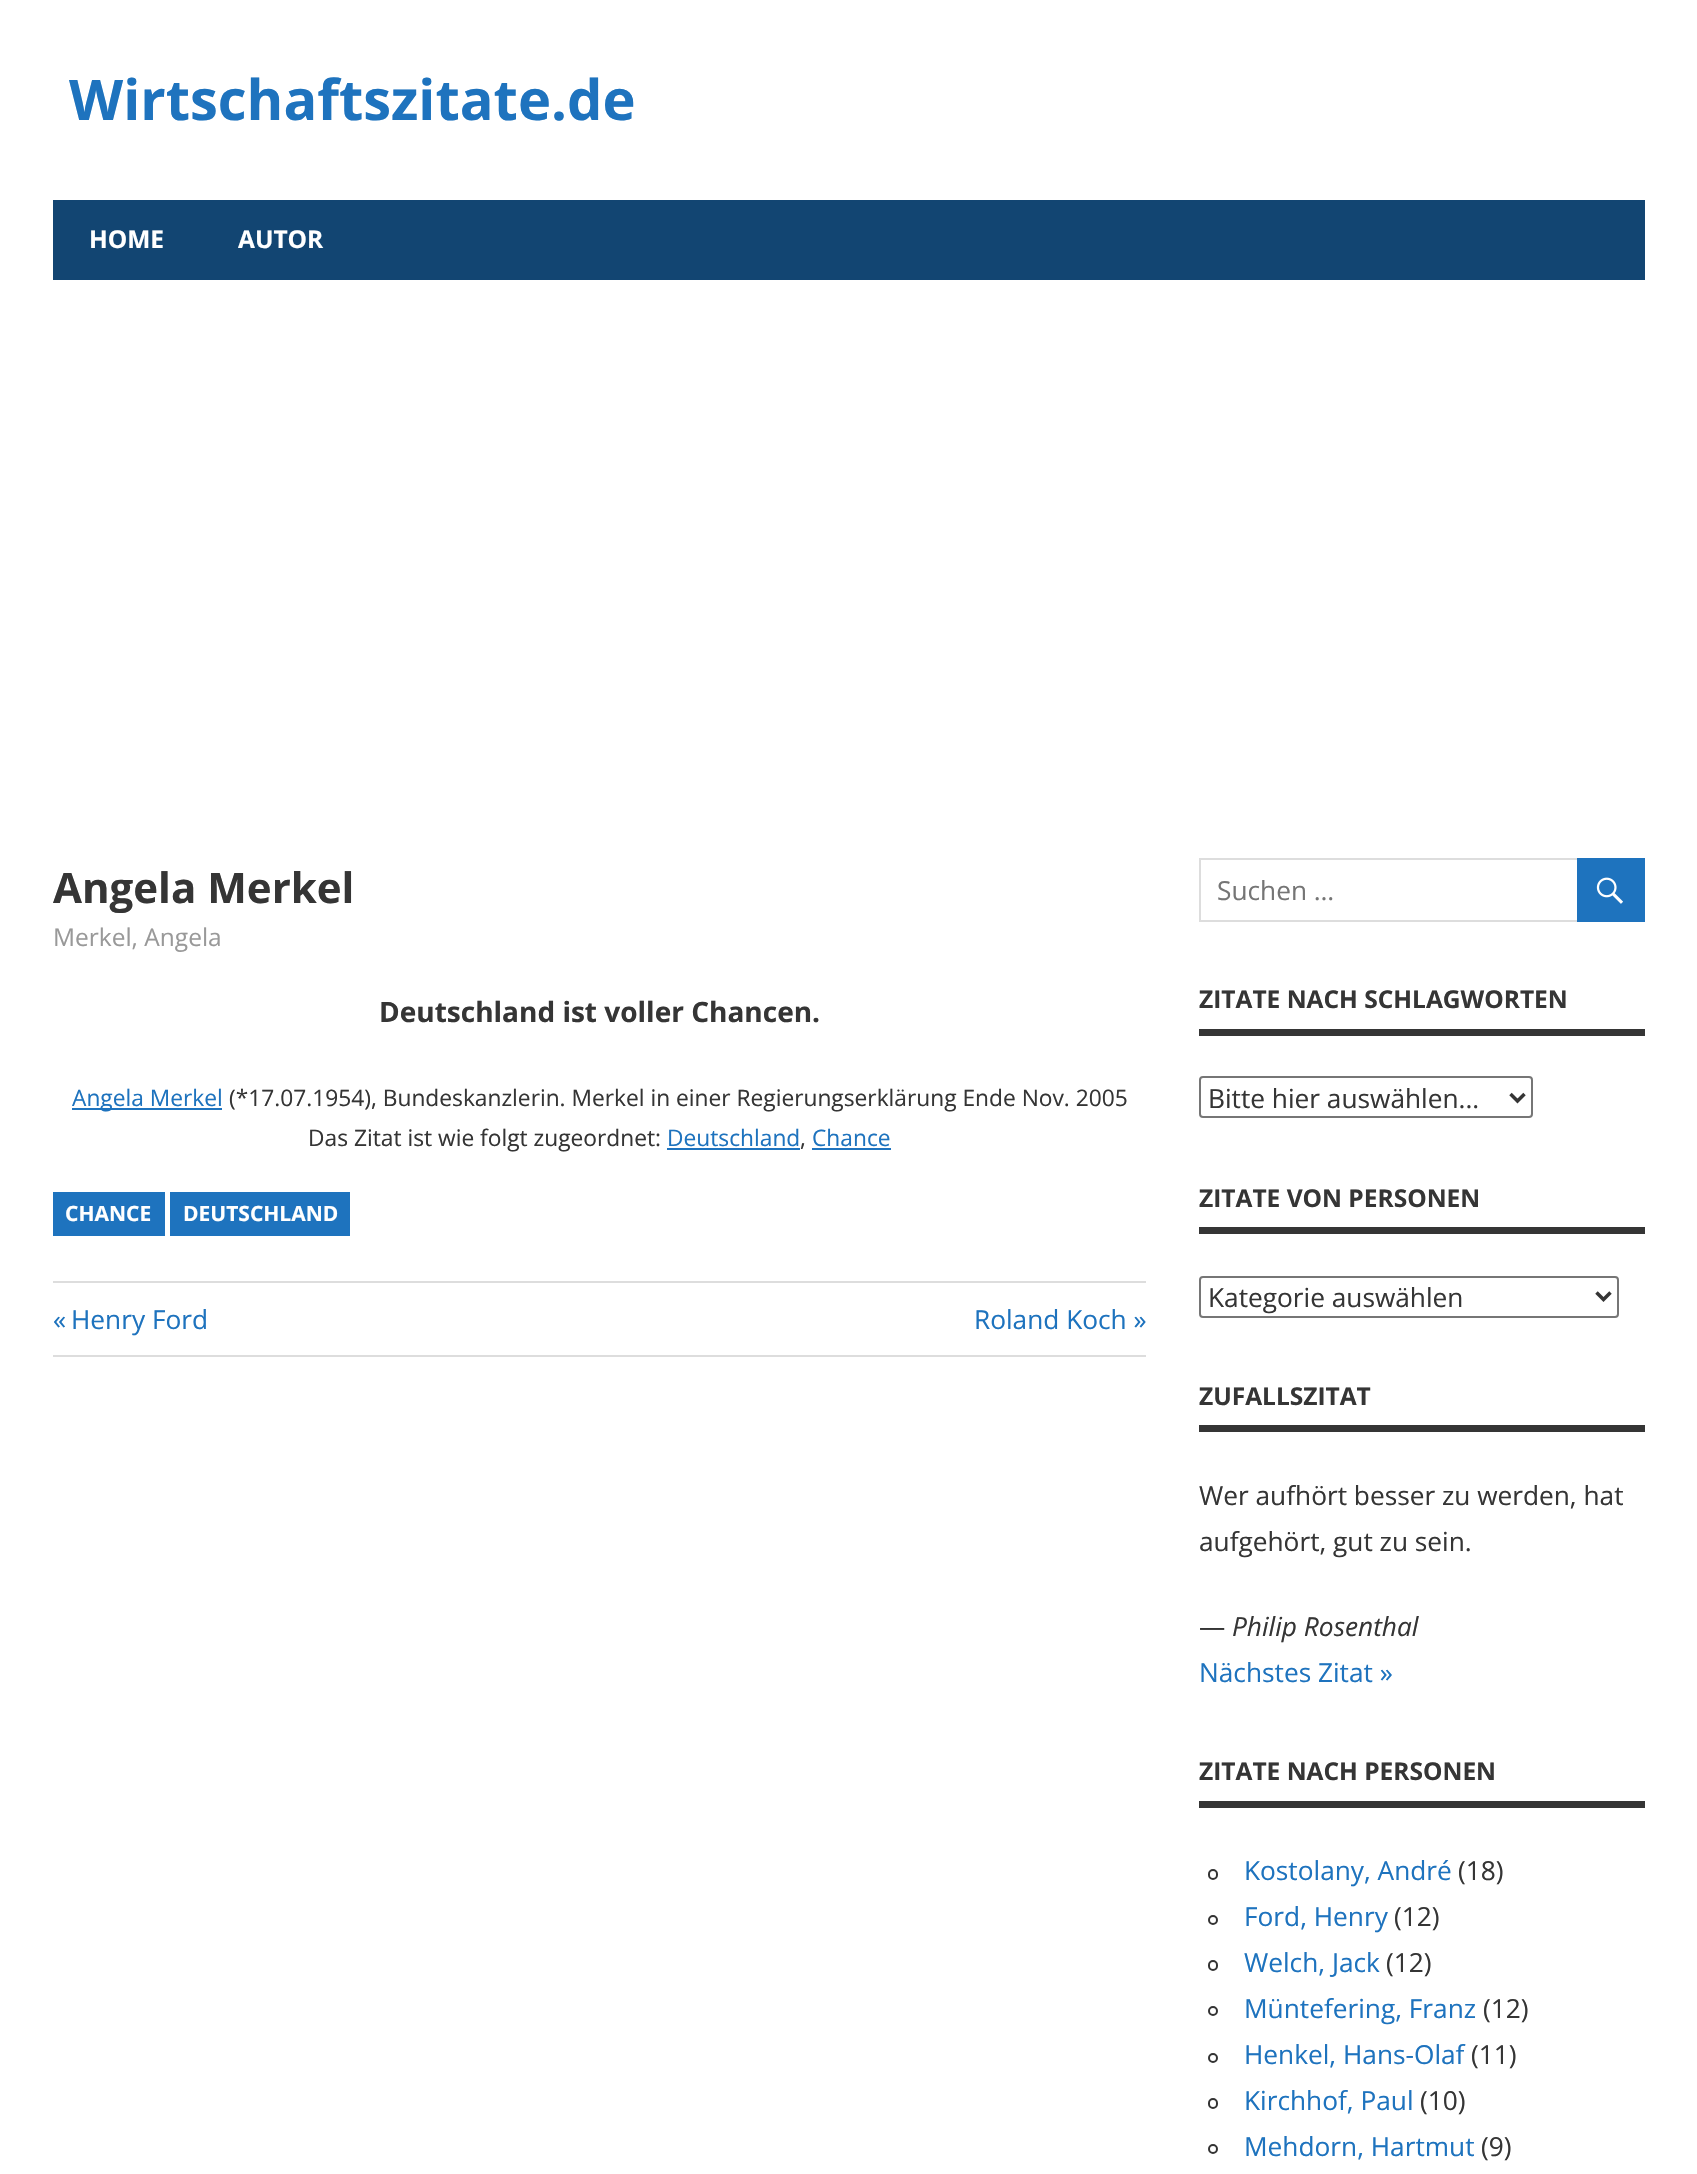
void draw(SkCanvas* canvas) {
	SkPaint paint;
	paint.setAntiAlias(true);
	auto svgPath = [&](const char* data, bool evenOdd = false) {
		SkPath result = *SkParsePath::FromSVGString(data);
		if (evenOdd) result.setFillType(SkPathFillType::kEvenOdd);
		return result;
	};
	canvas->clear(0xffffffff);
	SkFont f1(fontMgr->matchFamilyStyle("Open Sans", SkFontStyle::Bold()), 56);
	f1.setSubpixel(true);
	paint.setColor(0xff1e73be);
	canvas->drawString("Wirtschaftszitate.de", 69, 120, f1, paint);
	paint.setColor(0xff124572);
	canvas->drawRect(SkRect::MakeXYWH(53, 200, 1592, 80), paint);
	SkFont f2(fontMgr->matchFamilyStyle("Open Sans", SkFontStyle::Bold()), 24.5);
	f2.setSubpixel(true);
	paint.setColor(0xffffffff);
	canvas->drawString("HOME", 89, 248, f2, paint);
	canvas->drawString("AUTOR", 238, 248, f2, paint);
	SkFont f3(fontMgr->matchFamilyStyle("Open Sans", SkFontStyle::Bold()), 42);
	f3.setSubpixel(true);
	paint.setColor(0xff353535);
	canvas->drawString("Angela Merkel", 53, 903, f3, paint);
	SkFont f4(fontMgr->matchFamilyStyle("Open Sans", SkFontStyle::Normal()), 24.5);
	f4.setSubpixel(true);
	paint.setColor(0xff999999);
	canvas->drawString("Merkel, Angela", 53, 946, f4, paint);
	SkFont f5(fontMgr->matchFamilyStyle("Open Sans", SkFontStyle::Bold()), 28);
	f5.setSubpixel(true);
	paint.setColor(0xff353535);
	canvas->drawString("Deutschland ist voller Chancen.", 379, 1022, f5, paint);
	paint.setColor(0xff1e73be);
	canvas->drawRect(SkRect::MakeXYWH(72, 1108, 150, 2), paint);
	SkFont f6(fontMgr->matchFamilyStyle("Open Sans", SkFontStyle::Normal()), 22.75);
	f6.setSubpixel(true);
	canvas->drawString("Angela Merkel", 72, 1106, f6, paint);
	paint.setColor(0xff353535);
	canvas->drawString("(*17.07.1954), Bundeskanzlerin. Merkel in einer Regierungserklärung Ende Nov. 2005", 229, 1106, f6, paint);
	canvas->drawString("Das Zitat ist wie folgt zugeordnet:", 308, 1146, f6, paint);
	paint.setColor(0xff1e73be);
	canvas->drawString("Deutschland", 667, 1146, f6, paint);
	canvas->drawRect(SkRect::MakeXYWH(667, 1148, 133, 2), paint);
	paint.setColor(0xff353535);
	canvas->drawString(",", 800, 1146, f6, paint);
	paint.setColor(0xff1e73be);
	canvas->drawString("Chance", 812, 1146, f6, paint);
	canvas->drawRect(SkRect::MakeXYWH(812, 1148, 79, 2), paint);
	canvas->drawRect(SkRect::MakeXYWH(53, 1192, 112, 44), paint);
	SkFont f7(fontMgr->matchFamilyStyle("Open Sans", SkFontStyle::Bold()), 21);
	f7.setSubpixel(true);
	paint.setColor(0xffffffff);
	canvas->drawString("CHANCE", 65, 1221, f7, paint);
	paint.setColor(0xff1e73be);
	canvas->drawRect(SkRect::MakeXYWH(170, 1192, 180, 44), paint);
	paint.setColor(0xffffffff);
	canvas->drawString("DEUTSCHLAND", 183, 1221, f7, paint);
	paint.setColor(0xffdddddd);
	canvas->drawRect(SkRect::MakeXYWH(53, 1281, 1093, 2), paint);
	canvas->drawRect(SkRect::MakeXYWH(53, 1355, 1093, 2), paint);
	SkFont f8(fontMgr->matchFamilyStyle("Open Sans", SkFontStyle::Normal()), 26.25);
	f8.setSubpixel(true);
	paint.setColor(0xff1e73be);
	canvas->drawString("«", 53, 1329, f8, paint);
	canvas->drawString("Henry Ford", 71, 1329, f8, paint);
	canvas->drawString("Roland Koch »", 974, 1329, f8, paint);
	paint.setStroke(true);
	paint.setStrokeWidth(2);
	paint.setColor(0xffdddddd);
	canvas->drawRect(SkRect::MakeXYWH(1200, 859, 444, 62), paint);
	paint.setStroke(false);
	paint.setColor(0xff757575);
	canvas->drawString("Suchen …", 1217, 900, f8, paint);
	paint.setColor(0xff1e73be);
	canvas->drawRect(SkRect::MakeXYWH(1577, 858, 68, 64), paint);
	canvas->drawImageRect(SkImages::DeferredFromEncodedData(SkData::MakeFromFileName("img1.png")), SkRect::MakeXYWH(1596, 877, 27, 27), SkSamplingOptions());
	paint.setColor(0xff353535);
	canvas->drawRect(SkRect::MakeXYWH(1199, 1029, 446, 7), paint);
	canvas->drawString("ZITATE NACH SCHLAGWORTEN", 1199, 1008, f2, paint);
	paint.setStroke(true);
	paint.setColor(0xff767676);
	canvas->drawRoundRect(SkRect::MakeXYWH(1200, 1077, 332, 40), 3, 3, paint);
	paint.setStrokeWidth(3.5);
	paint.setColor(0xff353535);
	canvas->drawPath(svgPath("M1510.5 1094L1517.5 1101L1524.5 1094"), paint);
	paint.setStroke(false);
	canvas->drawString("Bitte hier auswählen...", 1208, 1108, f8, paint);
	canvas->drawRect(SkRect::MakeXYWH(1199, 1227, 446, 7), paint);
	canvas->drawString("ZITATE VON PERSONEN", 1199, 1207, f2, paint);
	paint.setStroke(true);
	paint.setStrokeWidth(2);
	paint.setColor(0xff767676);
	canvas->drawRoundRect(SkRect::MakeXYWH(1200, 1277, 418, 40), 3, 3, paint);
	paint.setStrokeWidth(3.5);
	paint.setColor(0xff353535);
	canvas->drawPath(svgPath("M1596.5 1292.5L1603.5 1299.5L1610.5 1292.5"), paint);
	paint.setStroke(false);
	canvas->drawString("Kategorie auswählen", 1208, 1307, f8, paint);
	canvas->drawRect(SkRect::MakeXYWH(1199, 1425, 446, 7), paint);
	canvas->drawString("ZUFALLSZITAT", 1199, 1405, f2, paint);
	canvas->drawString("Wer aufhört besser zu werden, hat", 1199, 1505, f8, paint);
	canvas->drawString("aufgehört, gut zu sein.", 1199, 1551, f8, paint);
	canvas->drawString("—", 1199, 1636, f8, paint);
	SkFont f9(fontMgr->matchFamilyStyle("Open Sans", SkFontStyle::Italic()), 26.25);
	f9.setSubpixel(true);
	canvas->drawString("Philip Rosenthal", 1232, 1636, f9, paint);
	paint.setColor(0xff1e73be);
	canvas->drawString("Nächstes Zitat »", 1199, 1682, f8, paint);
	paint.setColor(0xff353535);
	canvas->drawRect(SkRect::MakeXYWH(1199, 1801, 446, 7), paint);
	canvas->drawString("ZITATE NACH PERSONEN", 1199, 1780, f2, paint);
	paint.setStroke(true);
	paint.setStrokeWidth(2);
	paint.setColor(0xff333333);
	canvas->drawRoundRect(SkRect::MakeXYWH(1209, 1870, 8, 9), 4, 4, paint);
	paint.setStroke(false);
	paint.setColor(0xff1e73be);
	canvas->drawString("Kostolany, André", 1244, 1880, f8, paint);
	paint.setColor(0xff353535);
	canvas->drawString("(18)", 1458, 1880, f8, paint);
	paint.setStroke(true);
	paint.setColor(0xff333333);
	canvas->drawCircle(1213, 1920, 4, paint);
	paint.setStroke(false);
	paint.setColor(0xff1e73be);
	canvas->drawString("Ford, Henry", 1244, 1926, f8, paint);
	paint.setColor(0xff353535);
	canvas->drawString("(12)", 1394, 1926, f8, paint);
	paint.setStroke(true);
	paint.setColor(0xff333333);
	canvas->drawRoundRect(SkRect::MakeXYWH(1209, 1961, 8, 9), 4, 4, paint);
	paint.setStroke(false);
	paint.setColor(0xff1e73be);
	canvas->drawString("Welch, Jack", 1244, 1972, f8, paint);
	paint.setColor(0xff353535);
	canvas->drawString("(12)", 1386, 1972, f8, paint);
	paint.setStroke(true);
	paint.setColor(0xff333333);
	canvas->drawCircle(1213, 2011, 4, paint);
	paint.setStroke(false);
	paint.setColor(0xff1e73be);
	canvas->drawString("Müntefering, Franz", 1244, 2018, f8, paint);
	paint.setColor(0xff353535);
	canvas->drawString("(12)", 1483, 2018, f8, paint);
	paint.setStroke(true);
	paint.setColor(0xff333333);
	canvas->drawCircle(1213, 2058, 4, paint);
	paint.setStroke(false);
	paint.setColor(0xff1e73be);
	canvas->drawString("Henkel, Hans-Olaf", 1244, 2064, f8, paint);
	paint.setColor(0xff353535);
	canvas->drawString("(11)", 1471, 2064, f8, paint);
	paint.setStroke(true);
	paint.setColor(0xff333333);
	canvas->drawRoundRect(SkRect::MakeXYWH(1209, 2099, 8, 9), 4, 4, paint);
	paint.setStroke(false);
	paint.setColor(0xff1e73be);
	canvas->drawString("Kirchhof, Paul", 1244, 2110, f8, paint);
	paint.setColor(0xff353535);
	canvas->drawString("(10)", 1420, 2110, f8, paint);
	paint.setStroke(true);
	paint.setColor(0xff333333);
	canvas->drawCircle(1213, 2149, 4, paint);
	paint.setStroke(false);
	paint.setColor(0xff1e73be);
	canvas->drawString("Mehdorn, Hartmut", 1244, 2156, f8, paint);
	paint.setColor(0xff353535);
	canvas->drawString("(9)", 1481, 2156, f8, paint);
}
